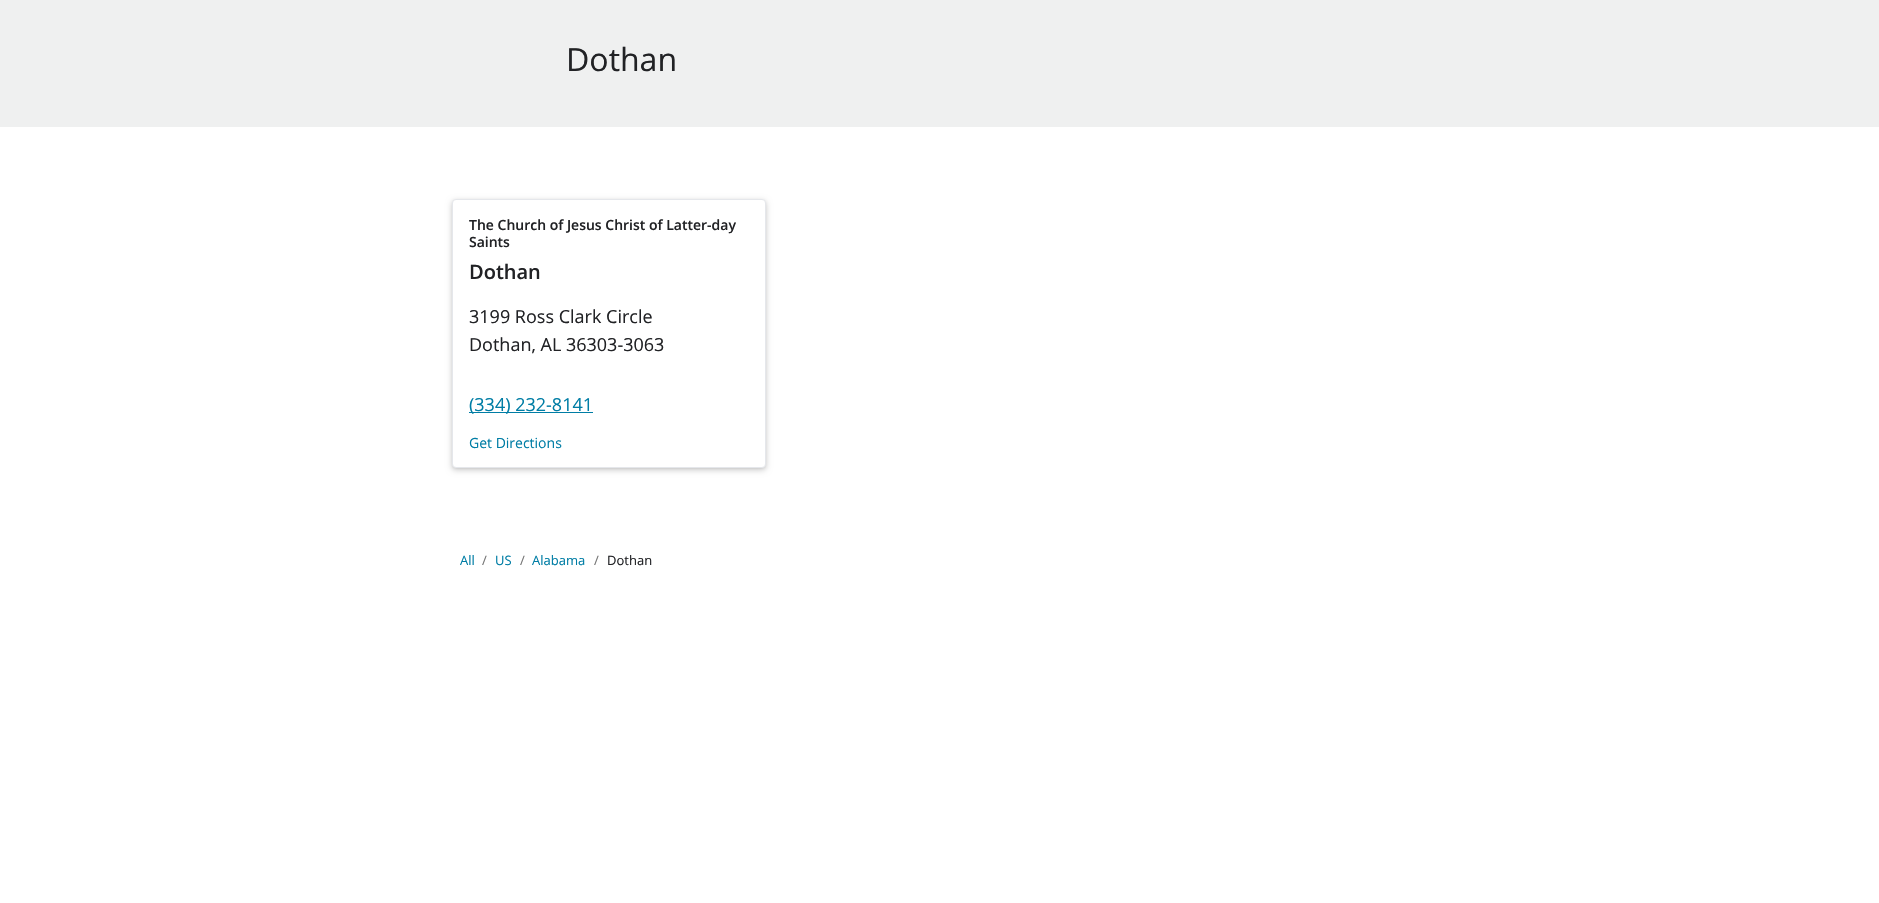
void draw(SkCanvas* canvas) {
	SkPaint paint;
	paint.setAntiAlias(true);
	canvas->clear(0xffffffff);
	paint.setColor(0xffeff0f0);
	canvas->drawRect(SkRect::MakeXYWH(0, 0, 1879, 127), paint);
	SkFont f1(fontMgr->matchFamilyStyle("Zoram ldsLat", SkFontStyle::Normal()), 32);
	f1.setSubpixel(true);
	paint.setColor(0xff212225);
	canvas->drawString("Dothan", 566, 71, f1, paint);
	paint.setColor(0x33000000);
	paint.setMaskFilter(SkMaskFilter::MakeBlur(kNormal_SkBlurStyle, 3));
	canvas->drawRoundRect(SkRect::MakeXYWH(452, 201, 314, 269), 4, 4, paint);
	paint.setMaskFilter(nullptr);
	paint.setColor(0x0d000000);
	paint.setMaskFilter(SkMaskFilter::MakeBlur(kNormal_SkBlurStyle, 1));
	canvas->drawRoundRect(SkRect::MakeXYWH(452, 200, 314, 269), 4, 4, paint);
	paint.setMaskFilter(nullptr);
	paint.setColor(0xffffffff);
	canvas->drawRoundRect(SkRect::MakeXYWH(452.5, 199.5, 313, 268), 3.5, 3.5, paint);
	paint.setStroke(true);
	paint.setStrokeWidth(1);
	paint.setColor(0xffe5e7eb);
	canvas->drawRoundRect(SkRect::MakeXYWH(452.5, 199.5, 313, 268), 3.5, 3.5, paint);
	SkFont f2(fontMgr->matchFamilyStyle("Zoram ldsLat", SkFontStyle(600, SkFontStyle::kNormal_Width, SkFontStyle::kUpright_Slant)), 14);
	f2.setSubpixel(true);
	paint.setStroke(false);
	paint.setColor(0xff212225);
	canvas->drawString("The Church of Jesus Christ of Latter-day", 469, 230, f2, paint);
	canvas->drawString("Saints", 469, 247, f2, paint);
	SkFont f3(fontMgr->matchFamilyStyle("Zoram ldsLat", SkFontStyle(600, SkFontStyle::kNormal_Width, SkFontStyle::kUpright_Slant)), 20);
	f3.setSubpixel(true);
	canvas->drawString("Dothan", 469, 279, f3, paint);
	SkFont f4(fontMgr->matchFamilyStyle("Zoram ldsLat", SkFontStyle::Normal()), 18);
	f4.setSubpixel(true);
	canvas->drawString("3199 Ross Clark Circle", 469, 323, f4, paint);
	canvas->drawString("Dothan, AL 36303-3063", 469, 351, f4, paint);
	paint.setColor(0xff007da5);
	canvas->drawRect(SkRect::MakeXYWH(469, 412, 124, 1), paint);
	canvas->drawString("(334) 232-8141", 469, 411, f4, paint);
	SkFont f5(fontMgr->matchFamilyStyle("Zoram ldsLat", SkFontStyle::Normal()), 14);
	f5.setSubpixel(true);
	canvas->drawString("Get Directions", 469, 448, f5, paint);
	SkFont f6(fontMgr->matchFamilyStyle("Zoram ldsLat", SkFontStyle::Normal()), 13);
	f6.setSubpixel(true);
	canvas->drawString("All", 460, 565, f6, paint);
	paint.setColor(0xff767676);
	canvas->drawString("/", 482, 565, f6, paint);
	paint.setColor(0xff007da5);
	canvas->drawString("US", 495, 565, f6, paint);
	paint.setColor(0xff767676);
	canvas->drawString("/", 520, 565, f6, paint);
	paint.setColor(0xff007da5);
	canvas->drawString("Alabama", 532, 565, f6, paint);
	paint.setColor(0xff767676);
	canvas->drawString("/", 594, 565, f6, paint);
	paint.setColor(0xff212225);
	canvas->drawString("Dothan", 607, 565, f6, paint);
}
